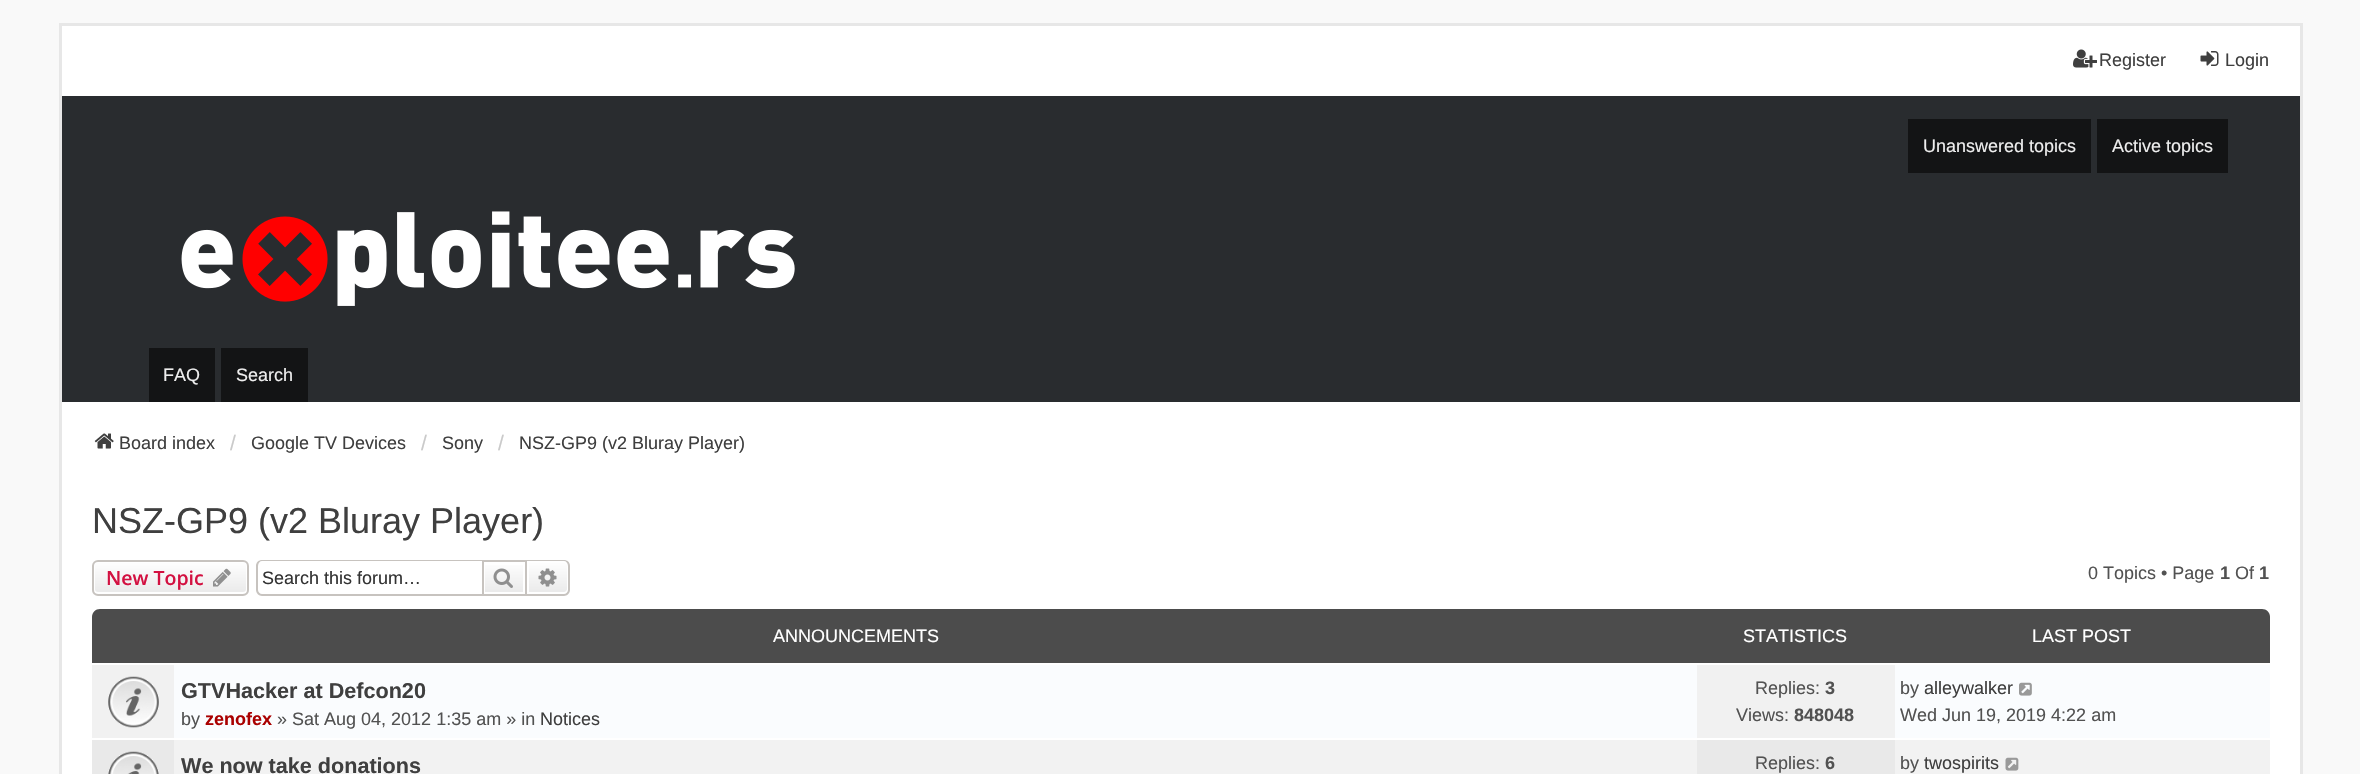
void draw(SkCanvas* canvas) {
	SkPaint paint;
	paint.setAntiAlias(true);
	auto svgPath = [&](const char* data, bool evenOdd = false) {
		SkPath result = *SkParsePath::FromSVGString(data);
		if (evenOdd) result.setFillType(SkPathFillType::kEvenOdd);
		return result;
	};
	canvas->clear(0xfff9f9f9);
	paint.setColor(0xffffffff);
	canvas->drawRect(SkRect::MakeXYWH(62, 26, 2238, 70), paint);
	paint.setColor(0xffe7e7e7);
	canvas->drawRect(SkRect::MakeXYWH(59, 23, 2244, 3), paint);
	canvas->drawRect(SkRect::MakeXYWH(2300, 23, 3, 751), paint);
	canvas->drawRect(SkRect::MakeXYWH(59, 23, 3, 751), paint);
	canvas->drawImageRect(SkImages::DeferredFromEncodedData(SkData::MakeFromFileName("img1.png")), SkRect::MakeXYWH(2073, 49, 24, 19), SkSamplingOptions());
	SkFont f1(fontMgr->matchFamilyStyle("Liberation Sans", SkFontStyle::Normal()), 18);
	f1.setSubpixel(true);
	paint.setColor(0xff3f3f3f);
	canvas->drawString("Register", 2099, 66, f1, paint);
	canvas->drawImageRect(SkImages::DeferredFromEncodedData(SkData::MakeFromFileName("img2.png")), SkRect::MakeXYWH(2200, 51, 19, 15), SkSamplingOptions());
	canvas->drawString("Login", 2225, 66, f1, paint);
	paint.setColor(0xff292c2f);
	canvas->drawRect(SkRect::MakeXYWH(62, 96, 2238, 306), paint);
	paint.setColor(0xff131415);
	canvas->drawRect(SkRect::MakeXYWH(1908, 119, 183, 54), paint);
	paint.setColor(0xffeeeeee);
	canvas->drawString("Unanswered topics", 1923, 152, f1, paint);
	paint.setColor(0xff131415);
	canvas->drawRect(SkRect::MakeXYWH(2097, 119, 131, 54), paint);
	paint.setColor(0xffeeeeee);
	canvas->drawString("Active topics", 2112, 152, f1, paint);
	canvas->drawImageRect(SkImages::DeferredFromEncodedData(SkData::MakeFromFileName("img3.png")), SkRect::MakeXYWH(181, 211, 614, 95), SkSamplingOptions());
	paint.setColor(0xff131415);
	canvas->drawRect(SkRect::MakeXYWH(149, 348, 66, 54), paint);
	paint.setColor(0xffeeeeee);
	canvas->drawString("FAQ", 163, 381, f1, paint);
	paint.setColor(0xff131415);
	canvas->drawRect(SkRect::MakeXYWH(221, 348, 87, 54), paint);
	paint.setColor(0xffeeeeee);
	canvas->drawString("Search", 236, 381, f1, paint);
	paint.setColor(0xffffffff);
	canvas->drawRect(SkRect::MakeXYWH(62, 402, 2238, 372), paint);
	canvas->drawImageRect(SkImages::DeferredFromEncodedData(SkData::MakeFromFileName("img4.png")), SkRect::MakeXYWH(94, 433, 20, 16), SkSamplingOptions());
	paint.setColor(0xff3f3f3f);
	canvas->drawString("Board index", 119, 449, f1, paint);
	SkFont f2(fontMgr->matchFamilyStyle("Liberation Sans", SkFontStyle::Normal()), 21);
	f2.setSubpixel(true);
	paint.setColor(0xffcacaca);
	canvas->drawString("/", 230, 450, f2, paint);
	paint.setColor(0xff3f3f3f);
	canvas->drawString("Google TV Devices", 251, 449, f1, paint);
	paint.setColor(0xffcacaca);
	canvas->drawString("/", 421, 450, f2, paint);
	paint.setColor(0xff3f3f3f);
	canvas->drawString("Sony", 442, 449, f1, paint);
	paint.setColor(0xffcacaca);
	canvas->drawString("/", 498, 450, f2, paint);
	paint.setColor(0xff3f3f3f);
	canvas->drawString("NSZ-GP9 (v2 Bluray Player)", 519, 449, f1, paint);
	SkFont f3(fontMgr->matchFamilyStyle("Liberation Sans", SkFontStyle::Normal()), 36);
	f3.setSubpixel(true);
	canvas->drawString("NSZ-GP9 (v2 Bluray Player)", 92, 533, f3, paint);
	canvas->save();
	canvas->clipPath(svgPath("M98 560H243C246.5 560 249 562.5 249 566V590C249 593.5 246.5 596 243 596H98C94.5 596 92 593.5 92 590V566C92 562.5 94.5 560 98 560Z"), true);
	{
		const SkColor colors[] = {0xffffffff, 0xffe9e9e9};
		const float stops[] = {0, 1};
		const SkPoint ends[] = {{170, 561}, {170, 594}};
		paint.setShader(SkGradientShader::MakeLinear(ends, colors, stops, 2, SkTileMode::kClamp));
		paint.setAlpha(255);
	}
	canvas->drawRect(SkRect::MakeXYWH(92, 561, 157, 33), paint);
	canvas->restore();
	paint.setStroke(true);
	paint.setStrokeWidth(2);
	paint.setShader(nullptr);
	paint.setColor(0xffffffff);
	canvas->drawRoundRect(SkRect::MakeXYWH(94, 562, 153, 31), 4, 4, paint);
	paint.setColor(0xffc7c3bf);
	canvas->drawRoundRect(SkRect::MakeXYWH(93, 561, 155, 34), 5, 5, paint);
	SkFont f4(fontMgr->matchFamilyStyle("Open Sans", SkFontStyle(600, SkFontStyle::kNormal_Width, SkFontStyle::kUpright_Slant)), 19.5);
	f4.setSubpixel(true);
	paint.setStroke(false);
	paint.setColor(0xffd31141);
	canvas->drawString("New Topic", 106, 585, f4, paint);
	canvas->drawImageRect(SkImages::DeferredFromEncodedData(SkData::MakeFromFileName("img5.png")), SkRect::MakeXYWH(213, 568, 18, 19), SkSamplingOptions());
	paint.setColor(0xffc7c3bf);
	canvas->drawPath(svgPath("M262 560H482V596H262C259 596 256 593 256 590V566C256 562 259 560 262 560ZM262 561H482V594H262C260 594 258 592 258 590V566C258 563 260 561 262 561Z", true), paint);
	paint.setColor(0xff333333);
	canvas->drawString("Search this forum…", 262, 584, f1, paint);
	{
		const SkColor colors[] = {0xffffffff, 0xffe9e9e9};
		const float stops[] = {0, 1};
		const SkPoint ends[] = {{504, 561}, {504, 594}};
		paint.setShader(SkGradientShader::MakeLinear(ends, colors, stops, 2, SkTileMode::kClamp));
		paint.setAlpha(255);
	}
	canvas->drawRect(SkRect::MakeXYWH(485, 565, 38, 27), paint);
	paint.setStroke(true);
	paint.setShader(nullptr);
	paint.setColor(0xffc7c3bf);
	canvas->drawRect(SkRect::MakeXYWH(483, 561, 43, 34), paint);
	canvas->drawImageRect(SkImages::DeferredFromEncodedData(SkData::MakeFromFileName("img6.png")), SkRect::MakeXYWH(493, 568, 20, 20), SkSamplingOptions());
	paint.setStroke(false);
	{
		const SkColor colors[] = {0xffffffff, 0xffe9e9e9};
		const float stops[] = {0, 1};
		const SkPoint ends[] = {{548, 561}, {548, 594}};
		paint.setShader(SkGradientShader::MakeLinear(ends, colors, stops, 2, SkTileMode::kClamp));
		paint.setAlpha(255);
	}
	canvas->drawPath(svgPath("M528 562H564C566 562 568 564 568 566V589C568 591 566 593 564 593H528Z"), paint);
	paint.setStroke(true);
	paint.setShader(nullptr);
	paint.setColor(0xffffffff);
	canvas->drawPath(svgPath("M528 562H564C566 562 568 564 568 566V589C568 591 566 593 564 593H528Z"), paint);
	paint.setStroke(false);
	paint.setColor(0xffc7c3bf);
	canvas->drawPath(svgPath("M526 560H564C567 560 570 562 570 566V590C570 593 567 596 564 596H526ZM526 561H564C566 561 568 563 568 566V590C568 592 566 594 564 594H526Z", true), paint);
	canvas->drawImageRect(SkImages::DeferredFromEncodedData(SkData::MakeFromFileName("img7.png")), SkRect::MakeXYWH(538, 568, 19, 19), SkSamplingOptions());
	paint.setColor(0xff525252);
	canvas->drawString("0 Topics • Page", 2088, 579, f1, paint);
	SkFont f5(fontMgr->matchFamilyStyle("Liberation Sans", SkFontStyle::Bold()), 18);
	f5.setSubpixel(true);
	canvas->drawString("1", 2220, 579, f5, paint);
	canvas->drawString("Of", 2235, 579, f1, paint);
	canvas->drawString("1", 2259, 579, f5, paint);
	paint.setColor(0xff4c4c4c);
	canvas->drawPath(svgPath("M100 609H2262C2266.5 609 2270 612.5 2270 617V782H92V617C92 612.5 95.5 609 100 609Z"), paint);
	paint.setColor(0xffffffff);
	canvas->drawString("ANNOUNCEMENTS", 773, 642, f1, paint);
	canvas->drawString("STATISTICS", 1743, 642, f1, paint);
	canvas->drawString("LAST POST", 2032, 642, f1, paint);
	paint.setColor(0xfffafcfe);
	canvas->drawRect(SkRect::MakeXYWH(174, 665, 2096, 73), paint);
	paint.setColor(0xffffffff);
	canvas->drawRect(SkRect::MakeXYWH(92, 663, 2178, 2), paint);
	paint.setColor(0xfff1f1f1);
	canvas->drawRect(SkRect::MakeXYWH(92, 665, 82, 73), paint);
	canvas->drawImageRect(SkImages::DeferredFromEncodedData(SkData::MakeFromFileName("img8.png")), SkRect::MakeXYWH(108, 676, 51, 52), SkSamplingOptions());
	SkFont f6(fontMgr->matchFamilyStyle("Liberation Sans", SkFontStyle::Bold()), 21.6);
	f6.setSubpixel(true);
	paint.setColor(0xff3f3f3f);
	canvas->drawString("GTVHacker at Defcon20", 181, 698, f6, paint);
	paint.setColor(0xff525252);
	canvas->drawString("by", 181, 725, f1, paint);
	paint.setColor(0xffaa0000);
	canvas->drawString("zenofex", 205, 725, f5, paint);
	paint.setColor(0xff525252);
	canvas->drawString("» Sat Aug 04, 2012 1:35 am » in", 277, 725, f1, paint);
	paint.setColor(0xff3f3f3f);
	canvas->drawString("Notices", 540, 725, f1, paint);
	paint.setColor(0xfff1f1f1);
	canvas->drawRect(SkRect::MakeXYWH(1697, 665, 198, 73), paint);
	paint.setColor(0xff525252);
	canvas->drawString("Replies:", 1755, 694, f1, paint);
	canvas->drawString("3", 1825, 694, f5, paint);
	canvas->drawString("Views:", 1736, 721, f1, paint);
	canvas->drawString("848048", 1794, 721, f5, paint);
	canvas->drawString("by", 1900, 694, f1, paint);
	paint.setColor(0xff3f3f3f);
	canvas->drawString("alleywalker", 1924, 694, f1, paint);
	canvas->drawImageRect(SkImages::DeferredFromEncodedData(SkData::MakeFromFileName("img9.png")), SkRect::MakeXYWH(2019, 682, 13, 14), SkSamplingOptions());
	paint.setColor(0xff525252);
	canvas->drawString("Wed Jun 19, 2019 4:22 am", 1900, 721, f1, paint);
	paint.setColor(0xfff2f2f2);
	canvas->drawRect(SkRect::MakeXYWH(174, 740, 2096, 34), paint);
	paint.setColor(0xffffffff);
	canvas->drawRect(SkRect::MakeXYWH(92, 738, 2178, 2), paint);
	paint.setColor(0xffe9e9e9);
	canvas->drawRect(SkRect::MakeXYWH(92, 740, 82, 34), paint);
	canvas->drawImageRect(SkImages::DeferredFromEncodedData(SkData::MakeFromFileName("img10.png")), SkRect::MakeXYWH(108, 751, 51, 23), SkSamplingOptions());
	paint.setColor(0xff3f3f3f);
	canvas->drawString("We now take donations", 181, 773, f6, paint);
	paint.setColor(0xffe9e9e9);
	canvas->drawRect(SkRect::MakeXYWH(1697, 740, 198, 34), paint);
	paint.setColor(0xff525252);
	canvas->drawString("Replies:", 1755, 769, f1, paint);
	canvas->drawString("6", 1825, 769, f5, paint);
	canvas->drawString("by", 1900, 769, f1, paint);
	paint.setColor(0xff3f3f3f);
	canvas->drawString("twospirits", 1924, 769, f1, paint);
	canvas->drawImageRect(SkImages::DeferredFromEncodedData(SkData::MakeFromFileName("img11.png")), SkRect::MakeXYWH(2005, 757, 14, 14), SkSamplingOptions());
}
